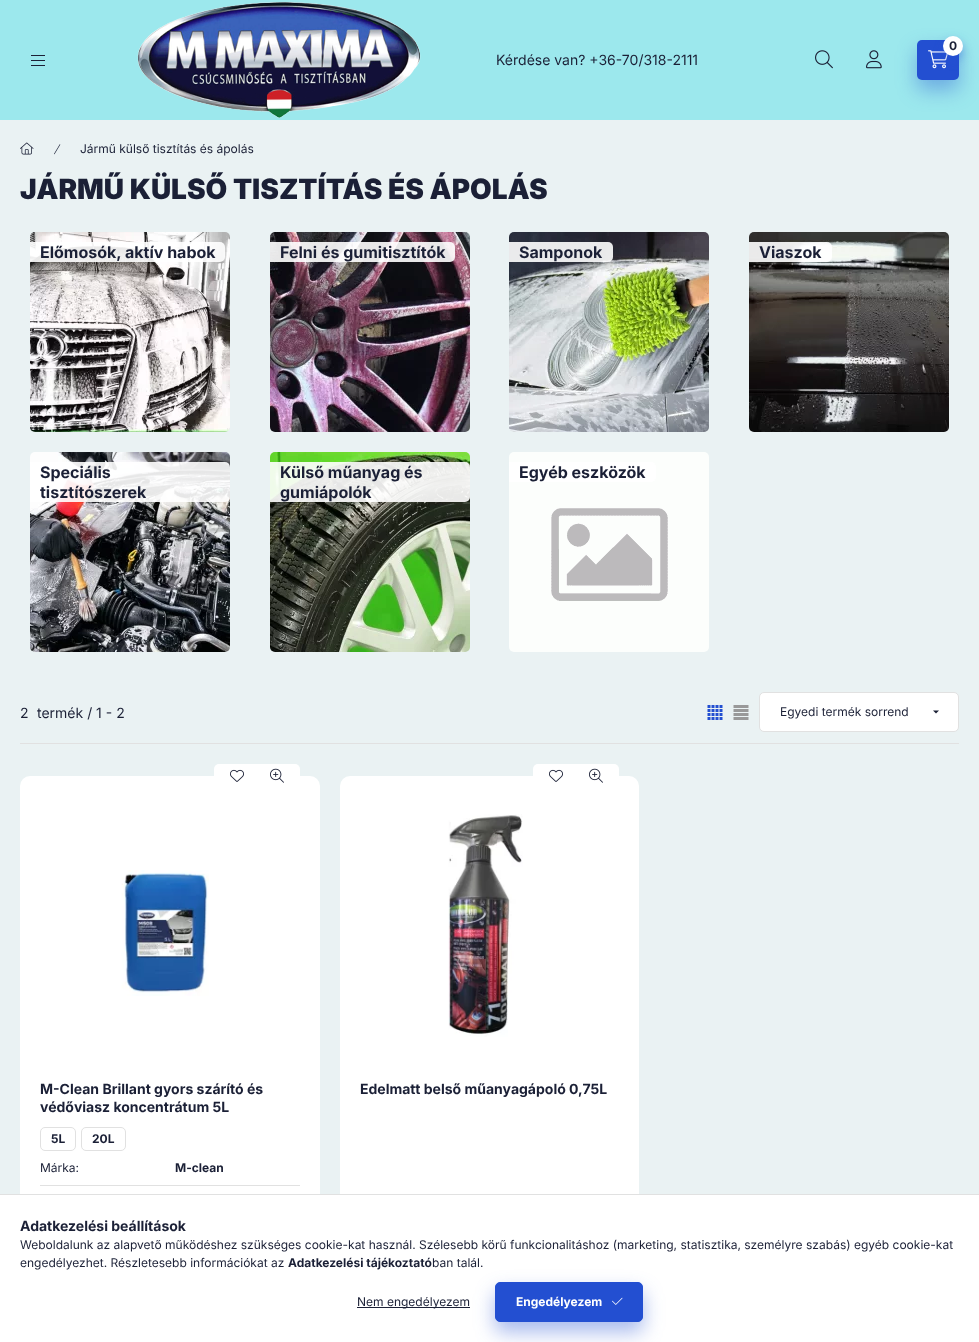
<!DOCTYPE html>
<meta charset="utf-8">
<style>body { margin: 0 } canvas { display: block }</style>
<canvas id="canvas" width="979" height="1342"></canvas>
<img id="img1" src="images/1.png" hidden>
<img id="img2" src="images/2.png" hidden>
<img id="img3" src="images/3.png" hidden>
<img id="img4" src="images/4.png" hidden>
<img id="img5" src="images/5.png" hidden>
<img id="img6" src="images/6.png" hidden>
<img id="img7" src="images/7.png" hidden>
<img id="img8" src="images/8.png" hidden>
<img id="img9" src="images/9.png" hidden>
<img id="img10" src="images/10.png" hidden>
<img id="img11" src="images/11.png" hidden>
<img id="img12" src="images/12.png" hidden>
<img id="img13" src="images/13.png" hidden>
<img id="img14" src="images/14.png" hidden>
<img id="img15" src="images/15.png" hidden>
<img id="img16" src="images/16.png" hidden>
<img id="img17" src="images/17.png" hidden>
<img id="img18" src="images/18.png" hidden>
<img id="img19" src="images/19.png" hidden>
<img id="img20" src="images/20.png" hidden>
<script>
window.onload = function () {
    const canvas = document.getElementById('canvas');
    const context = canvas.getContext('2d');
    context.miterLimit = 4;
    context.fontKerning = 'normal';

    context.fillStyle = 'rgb(234, 242, 243)';
    context.fillRect(0, 0, 979, 1342);
    context.fillStyle = 'rgb(156, 232, 237)';
    context.fillRect(0, 0, 979, 120);
    context.fillStyle = 'rgba(35, 79, 209, 0.4)';
    context.filter = 'blur(10px)';
    context.beginPath();
    context.roundRect(917, 50, 42, 40, 5);
    context.fill();
    context.filter = 'none';
    context.fillStyle = 'rgb(35, 79, 209)';
    context.beginPath();
    context.roundRect(917, 40, 42, 40, 5);
    context.fill();
    context.drawImage(document.getElementById('img1'), 928, 50, 20, 19);
    context.fillStyle = 'rgba(35, 79, 209, 0.4)';
    context.filter = 'blur(5px)';
    context.beginPath();
    context.roundRect(943, 41, 20, 20, 10);
    context.fill();
    context.filter = 'none';
    context.fillStyle = 'rgb(255, 255, 255)';
    context.beginPath();
    context.arc(953, 46, 10, 0, 2 * Math.PI);
    context.fill();
    context.drawImage(document.getElementById('img2'), 815, 50, 18, 19);
    context.drawImage(document.getElementById('img3'), 866, 50, 16, 19);
    context.fillStyle = 'rgb(27, 32, 54)';
    context.fillRect(31, 55, 14, 1);
    context.fillRect(31, 60, 14, 1);
    context.fillRect(31, 65, 14, 1);
    context.drawImage(document.getElementById('img4'), 137, 1, 284, 117);
    context.drawImage(document.getElementById('img5'), 20, 142, 14, 13);
    context.drawImage(document.getElementById('img6'), 54, 144, 7, 11);
    context.drawImage(document.getElementById('img7'), 30, 232, 200, 200);
    context.fillStyle = 'rgba(255, 255, 255, 0.9)';
    context.beginPath();
    context.roundRect(30, 242, 195, 20, [0, 5, 5, 0]);
    context.fill();
    context.drawImage(document.getElementById('img8'), 270, 232, 200, 200);
    context.beginPath();
    context.roundRect(270, 242, 185, 20, [0, 5, 5, 0]);
    context.fill();
    context.drawImage(document.getElementById('img9'), 509, 232, 200, 200);
    context.beginPath();
    context.roundRect(509, 242, 104, 20, [0, 5, 5, 0]);
    context.fill();
    context.drawImage(document.getElementById('img10'), 749, 232, 200, 200);
    context.beginPath();
    context.roundRect(749, 242, 83, 20, [0, 5, 5, 0]);
    context.fill();
    context.drawImage(document.getElementById('img11'), 30, 452, 200, 200);
    context.beginPath();
    context.roundRect(30, 462, 200, 40, [0, 5, 5, 0]);
    context.fill();
    context.drawImage(document.getElementById('img12'), 270, 452, 200, 200);
    context.beginPath();
    context.roundRect(270, 462, 200, 40, [0, 5, 5, 0]);
    context.fill();
    context.drawImage(document.getElementById('img13'), 509, 452, 200, 200);
    context.fillStyle = 'rgb(255, 255, 255)';
    context.beginPath();
    context.roundRect(509, 462, 147, 20, [0, 5, 5, 0]);
    context.fill();
    context.fillStyle = 'rgb(225, 225, 225)';
    context.fillRect(20, 743, 939, 1);
    context.drawImage(document.getElementById('img14'), 707, 705, 16, 15);
    context.drawImage(document.getElementById('img15'), 733, 705, 16, 15);
    context.fillStyle = 'rgb(255, 255, 255)';
    context.beginPath();
    context.roundRect(759.5, 692.5, 199, 39, 4.5);
    context.fill();
    context.strokeStyle = 'rgb(225, 225, 225)';
    context.stroke();
    context.fillStyle = 'rgb(27, 32, 54)';
    context.beginPath();
    context.moveTo(933, 710.5);
    context.lineTo(939, 710.5);
    context.lineTo(936, 713.5);
    context.closePath();
    context.fill();
    context.fillStyle = 'rgb(255, 255, 255)';
    context.beginPath();
    context.roundRect(20, 776, 300, 533, 10);
    context.fill();
    context.beginPath();
    context.roundRect(214, 764, 86, 24, 5);
    context.fill();
    context.drawImage(document.getElementById('img16'), 230, 769, 14, 13);
    context.drawImage(document.getElementById('img17'), 270, 768, 14, 15);
    context.drawImage(document.getElementById('img18'), 121, 870, 88, 126);
    context.beginPath();
    context.roundRect(40.5, 1127.5, 35, 23, 4.5);
    context.stroke();
    context.beginPath();
    context.roundRect(81.5, 1127.5, 44, 23, 4.5);
    context.stroke();
    context.fillStyle = 'rgb(225, 225, 225)';
    context.fillRect(40, 1185, 260, 1);
    context.fillStyle = 'rgb(255, 255, 255)';
    context.beginPath();
    context.roundRect(340, 776, 299, 533, 10);
    context.fill();
    context.beginPath();
    context.roundRect(533, 764, 86, 24, 5);
    context.fill();
    context.drawImage(document.getElementById('img16'), 549, 769, 14, 13);
    context.drawImage(document.getElementById('img17'), 589, 768, 14, 15);
    context.drawImage(document.getElementById('img19'), 448, 814, 75, 223);
    context.fillRect(0, 1195, 979, 147);
    context.fillStyle = 'rgb(225, 225, 225)';
    context.fillRect(0, 1194, 979, 1);
    context.fillStyle = 'rgb(27, 32, 54)';
    context.fillRect(357, 1307, 113, 1);
    context.fillStyle = 'rgba(35, 79, 209, 0.4)';
    context.filter = 'blur(10px)';
    context.beginPath();
    context.roundRect(495, 1292, 148, 40, 5);
    context.fill();
    context.filter = 'none';
    context.fillStyle = 'rgb(35, 79, 209)';
    context.beginPath();
    context.roundRect(495.5, 1282.5, 147, 39, 4.5);
    context.fill();
    context.strokeStyle = 'rgb(35, 79, 209)';
    context.stroke();
    context.drawImage(document.getElementById('img20'), 612, 1297, 11, 8);
    context.font = 'bold 12px Inter';
    context.fillStyle = 'rgb(27, 32, 54)';
    context.fillText('0', 949, 50);
    context.font = '14px Inter';
    context.fillText('Kérdése van? +36-70/318-2111', 496, 65);
    context.font = '12px Inter';
    context.fillText('Jármű külső tisztítás és ápolás', 80, 153);
    context.font = '900 28px Inter';
    context.fillText('JÁRMŰ KÜLSŐ TISZTÍTÁS ÉS ÁPOLÁS', 20, 199);
    context.font = 'bold 16px Inter';
    context.fillText('Előmosók, aktív habok', 40, 258);
    context.fillText('Felni és gumitisztítók', 280, 258);
    context.fillText('Samponok', 519, 258);
    context.fillText('Viaszok', 759, 258);
    context.fillText('Speciális', 40, 478);
    context.fillText('tisztítószerek', 40, 498);
    context.fillText('Külső műanyag és', 280, 478);
    context.fillText('gumiápolók', 280, 498);
    context.fillText('Egyéb eszközök', 519, 478);
    context.font = '14px Inter';
    context.fillText('2', 20, 718);
    context.fillText('termék / 1 - 2', 37, 718);
    context.font = '12px Inter';
    context.fillText('Egyedi termék sorrend', 780, 716);
    context.font = 'bold 14px Inter';
    context.fillText('M-Clean Brillant gyors szárító és', 40, 1094);
    context.fillText('védőviasz koncentrátum 5L', 40, 1112);
    context.font = 'bold 12px Inter';
    context.fillText('5L', 51, 1143);
    context.fillText('20L', 92, 1143);
    context.font = '12px Inter';
    context.fillText('Márka:', 40, 1172);
    context.font = 'bold 12px Inter';
    context.fillText('M-clean', 175, 1172);
    context.font = 'bold 14px Inter';
    context.fillText('Edelmatt belső műanyagápoló 0,75L', 360, 1094);
    context.fillText('Adatkezelési beállítások', 20, 1231);
    context.font = '12px Inter';
    context.fillText('Weboldalunk az alapvető működéshez szükséges cookie-kat használ. Szélesebb körű funkcionalitáshoz (marketing, statisztika, személyre szabás) egyéb cookie-kat', 20, 1249);
    context.fillText('engedélyezhet. Részletesebb információkat az', 20, 1267);
    context.font = 'bold 12px Inter';
    context.fillText('Adatkezelési tájékoztató', 288, 1267);
    context.font = '12px Inter';
    context.fillText('ban talál.', 432, 1267);
    context.fillText('Nem engedélyezem', 357, 1306);
    context.font = 'bold 12px Inter';
    context.fillStyle = 'rgb(255, 255, 255)';
    context.fillText('Engedélyezem', 516, 1306);
};
</script>
